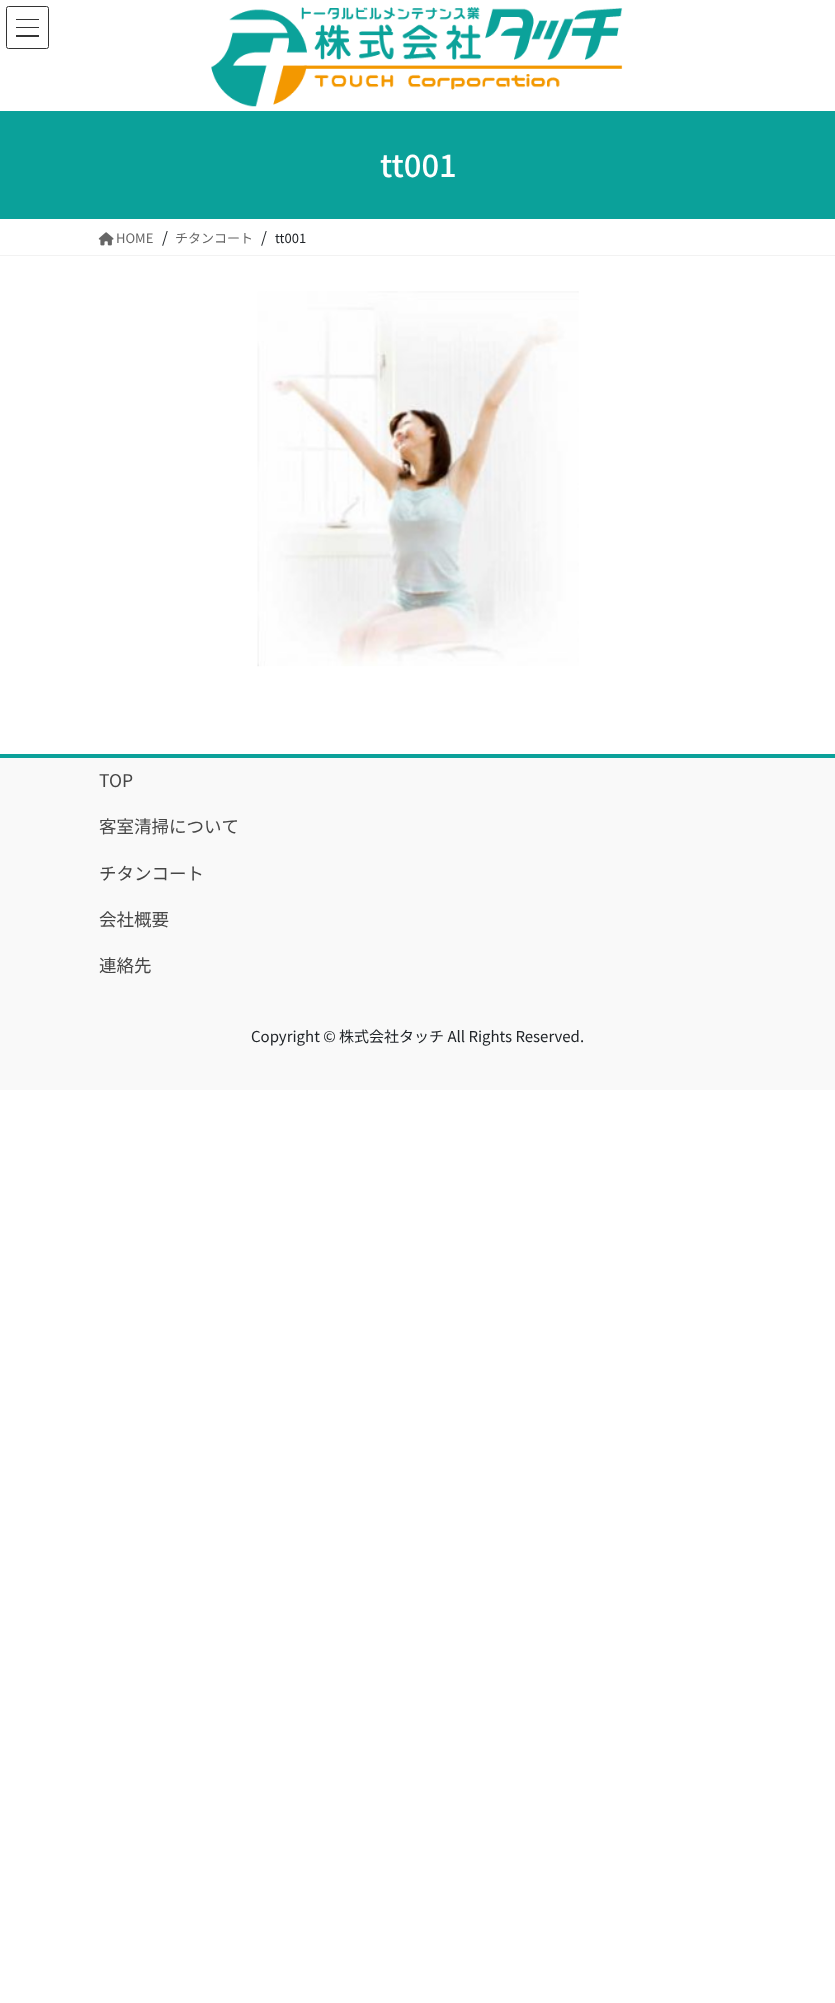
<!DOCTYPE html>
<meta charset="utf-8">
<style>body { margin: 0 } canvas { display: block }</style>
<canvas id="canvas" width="835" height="2003"></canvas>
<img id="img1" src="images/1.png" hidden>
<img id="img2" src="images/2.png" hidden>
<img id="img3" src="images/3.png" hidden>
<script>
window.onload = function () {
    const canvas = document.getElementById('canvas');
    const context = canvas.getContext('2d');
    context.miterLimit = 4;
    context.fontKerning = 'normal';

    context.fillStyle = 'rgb(255, 255, 255)';
    context.fillRect(0, 0, 835, 2003);
    context.fillStyle = 'rgb(51, 51, 51)';
    context.fillRect(16, 19, 23, 1);
    context.fillRect(16, 27, 23, 1);
    context.fillRect(16, 35, 23, 2);
    context.beginPath();
    context.roundRect(6.5, 6.5, 42, 42, 2);
    context.strokeStyle = 'rgb(51, 51, 51)';
    context.stroke();
    context.drawImage(document.getElementById('img1'), 211, 7, 412, 100);
    context.fillStyle = 'rgb(11, 161, 154)';
    context.fillRect(0, 111, 835, 108);
    context.fillStyle = 'rgb(242, 242, 242)';
    context.fillRect(0, 255, 835, 1);
    context.drawImage(document.getElementById('img2'), 98, 232, 16, 14);
    context.drawImage(document.getElementById('img3'), 257, 291, 322, 376);
    context.fillStyle = 'rgb(249, 249, 249)';
    context.fillRect(0, 758, 835, 332);
    context.fillStyle = 'rgb(11, 161, 154)';
    context.fillRect(0, 754, 835, 4);
    context.font = '500 31px Noto Sans JP';
    context.fillStyle = 'rgb(255, 255, 255)';
    context.fillText('tt001', 380, 177);
    context.font = '13px Noto Sans JP';
    context.fillStyle = 'rgb(102, 102, 102)';
    context.fillText('HOME', 116, 243);
    context.font = '15px Noto Sans JP';
    context.fillStyle = 'rgb(33, 37, 41)';
    context.fillText('/', 162, 243);
    context.font = '13px Noto Sans JP';
    context.fillStyle = 'rgb(102, 102, 102)';
    context.fillText('チタンコート', 175, 243);
    context.font = '15px Noto Sans JP';
    context.fillStyle = 'rgb(33, 37, 41)';
    context.fillText('/', 261, 243);
    context.font = '13px Noto Sans JP';
    context.fillText('tt001', 275, 243);
    context.font = '17.5px Noto Sans JP';
    context.fillStyle = 'rgb(70, 70, 70)';
    context.fillText('TOP', 99, 787);
    context.fillText('客室清掃について', 99, 833);
    context.fillText('チタンコート', 99, 880);
    context.fillText('会社概要', 99, 926);
    context.fillText('連絡先', 99, 972);
    context.font = '15px Noto Sans JP';
    context.fillStyle = 'rgb(33, 37, 41)';
    context.fillText('Copyright © 株式会社タッチ All Rights Reserved.', 251, 1042);
};
</script>
